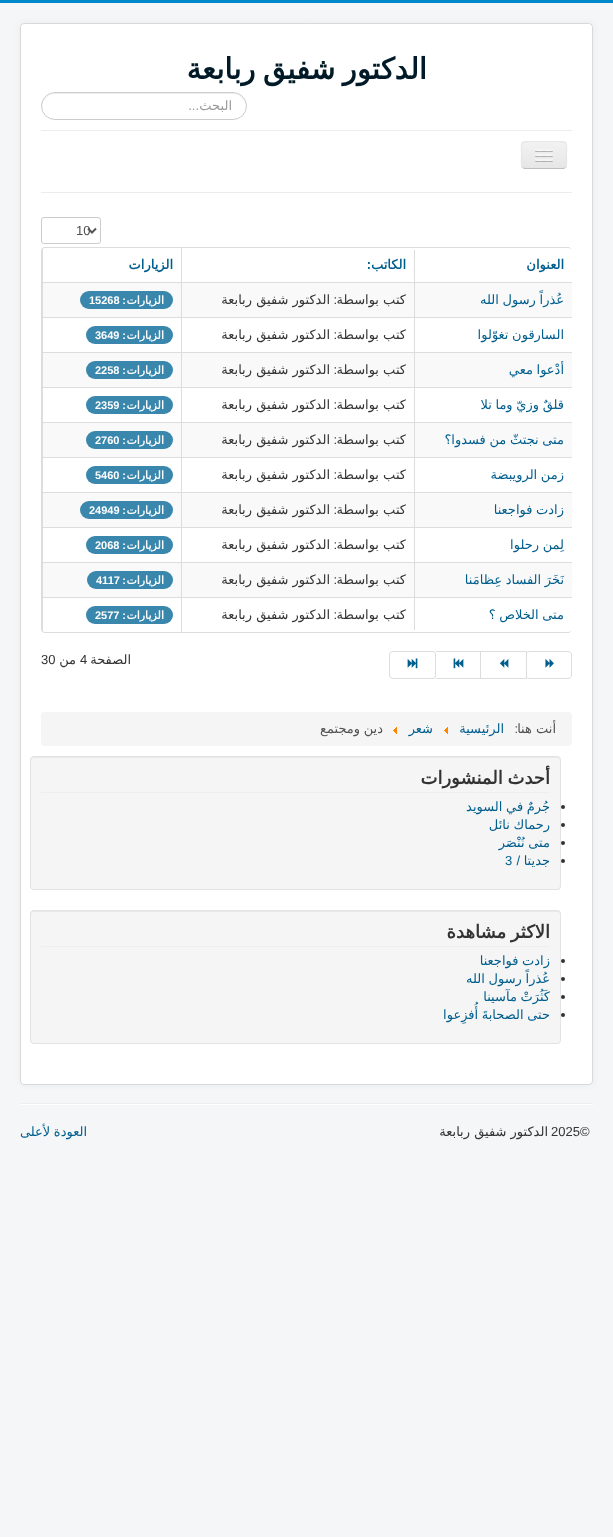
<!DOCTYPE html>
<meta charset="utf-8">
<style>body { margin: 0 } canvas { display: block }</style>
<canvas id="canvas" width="613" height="1537"></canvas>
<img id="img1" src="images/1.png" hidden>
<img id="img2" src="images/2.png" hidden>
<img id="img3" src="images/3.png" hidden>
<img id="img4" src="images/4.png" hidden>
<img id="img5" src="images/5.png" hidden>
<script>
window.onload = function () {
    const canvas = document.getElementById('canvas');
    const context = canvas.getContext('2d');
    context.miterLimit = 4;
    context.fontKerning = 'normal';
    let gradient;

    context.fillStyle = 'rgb(244, 246, 247)';
    context.fillRect(0, 0, 613, 1537);
    context.fillStyle = 'rgb(0, 136, 204)';
    context.fillRect(0, 0, 613, 3);
    context.fillStyle = 'rgba(0, 0, 0, 0.05)';
    context.filter = 'blur(3px)';
    context.beginPath();
    context.roundRect(20, 23, 573, 1062, 4);
    context.fill();
    context.filter = 'none';
    context.fillStyle = 'rgb(255, 255, 255)';
    context.beginPath();
    context.roundRect(20, 23, 573, 1062, 4);
    context.fill();
    context.beginPath();
    context.roundRect(20.5, 23.5, 572, 1061, 3.5);
    context.strokeStyle = 'rgba(0, 0, 0, 0.15)';
    context.stroke();
    context.fillStyle = 'rgb(236, 236, 236)';
    context.beginPath();
    context.moveTo(55, 94);
    context.lineTo(233, 94);
    context.bezierCurveTo(240, 94, 246, 100, 246, 107);
    context.bezierCurveTo(247, 86, 211, 93, 203, 93);
    context.lineTo(85, 93);
    context.bezierCurveTo(77, 93, 41, 86, 42, 107);
    context.bezierCurveTo(42, 100, 48, 94, 55, 94);
    context.closePath();
    context.fill();
    context.beginPath();
    context.roundRect(41.5, 92.5, 205, 27, 13.5);
    context.strokeStyle = 'rgb(204, 204, 204)';
    context.stroke();
    context.fillRect(41, 130, 531, 1);
    context.fillRect(41, 192, 531, 1);
    context.fillStyle = 'rgb(237, 237, 237)';
    context.beginPath();
    context.roundRect(521, 141, 46, 28, 4);
    context.fill();
    context.save();
    context.beginPath();
    context.roundRect(521, 141, 46, 28, 4);
    context.clip();
    gradient = context.createLinearGradient(544, 142, 544, 168);
    gradient.addColorStop(0, 'rgb(242, 242, 242)');
    gradient.addColorStop(1, 'rgb(230, 230, 230)');
    context.fillStyle = gradient;
    context.fillRect(521, 142, 46, 26);
    context.restore();
    context.beginPath();
    context.moveTo(565.5, 167.5);
    context.bezierCurveTo(565, 168, 564, 168.5, 563, 168.5);
    context.lineTo(525, 168.5);
    context.bezierCurveTo(524, 168.5, 523, 168, 522.5, 167.5);
    context.strokeStyle = 'rgb(191, 191, 191)';
    context.stroke();
    context.beginPath();
    context.moveTo(522.5, 167.5);
    context.bezierCurveTo(520.5, 165, 521.5, 157.5, 521.5, 155);
    context.bezierCurveTo(521.5, 142.5, 519, 141.5, 531.5, 141.5);
    context.lineTo(556.5, 141.5);
    context.bezierCurveTo(569, 141.5, 566.5, 142.5, 566.5, 155);
    context.bezierCurveTo(566.5, 157.5, 567.5, 165, 565.5, 167.5);
    context.strokeStyle = 'rgb(230, 230, 230)';
    context.stroke();
    context.fillStyle = 'rgb(179, 179, 179)';
    context.beginPath();
    context.moveTo(535, 150.5);
    context.bezierCurveTo(534, 152.5, 538.5, 152, 538.5, 152);
    context.lineTo(549.5, 152);
    context.bezierCurveTo(549.5, 152, 554, 152.5, 553, 150.5);
    context.bezierCurveTo(552, 151.5, 545.5, 151, 544, 151);
    context.bezierCurveTo(542.5, 151, 536, 151.5, 535, 150.5);
    context.closePath();
    context.fill();
    context.fillStyle = 'rgb(245, 245, 245)';
    context.beginPath();
    context.roundRect(535, 149, 18, 2, 1);
    context.fill();
    context.fillStyle = 'rgb(176, 176, 176)';
    context.beginPath();
    context.moveTo(535, 155.5);
    context.bezierCurveTo(534, 157.5, 538.5, 157, 538.5, 157);
    context.lineTo(549.5, 157);
    context.bezierCurveTo(549.5, 157, 554, 157.5, 553, 155.5);
    context.bezierCurveTo(552, 156.5, 545.5, 156, 544, 156);
    context.bezierCurveTo(542.5, 156, 536, 156.5, 535, 155.5);
    context.closePath();
    context.fill();
    context.fillStyle = 'rgb(245, 245, 245)';
    context.beginPath();
    context.roundRect(535, 154, 18, 2, 1);
    context.fill();
    context.fillStyle = 'rgb(175, 175, 175)';
    context.beginPath();
    context.moveTo(535, 160.5);
    context.bezierCurveTo(534, 162.5, 538.5, 162, 538.5, 162);
    context.lineTo(549.5, 162);
    context.bezierCurveTo(549.5, 162, 554, 162.5, 553, 160.5);
    context.bezierCurveTo(552, 161.5, 545.5, 161, 544, 161);
    context.bezierCurveTo(542.5, 161, 536, 161.5, 535, 160.5);
    context.closePath();
    context.fill();
    context.fillStyle = 'rgb(245, 245, 245)';
    context.beginPath();
    context.roundRect(535, 159, 18, 2, 1);
    context.fill();
    context.beginPath();
    context.roundRect(41.5, 217.5, 59, 26, 2.5);
    context.strokeStyle = 'rgb(204, 204, 204)';
    context.stroke();
    context.beginPath();
    context.moveTo(88, 228.5);
    context.lineTo(92, 232.5);
    context.lineTo(96, 228.5);
    context.strokeStyle = 'rgb(85, 85, 85)';
    context.lineWidth = 2;
    context.stroke();
    context.fillStyle = 'rgb(221, 221, 221)';
    context.beginPath();
    context.moveTo(45, 247);
    context.lineTo(568, 247);
    context.bezierCurveTo(570, 247, 572, 249, 572, 251);
    context.lineTo(572, 629);
    context.bezierCurveTo(572, 631, 570, 633, 568, 633);
    context.lineTo(45, 633);
    context.bezierCurveTo(43, 633, 41, 631, 41, 629);
    context.lineTo(41, 251);
    context.bezierCurveTo(41, 249, 43, 247, 45, 247);
    context.closePath();
    context.moveTo(45, 248);
    context.lineTo(568, 248);
    context.bezierCurveTo(570, 248, 572, 249, 572, 251);
    context.lineTo(572, 629);
    context.bezierCurveTo(572, 631, 570, 632, 568, 632);
    context.lineTo(45, 632);
    context.bezierCurveTo(43, 632, 42, 631, 42, 629);
    context.lineTo(42, 251);
    context.bezierCurveTo(42, 249, 43, 248, 45, 248);
    context.closePath();
    context.fill('evenodd');
    context.fillRect(414, 250, 1, 32);
    context.fillRect(181, 248, 1, 34);
    context.fillRect(42, 248, 1, 34);
    context.fillStyle = 'rgb(249, 249, 249)';
    context.fillRect(415, 283, 157, 34);
    context.fillStyle = 'rgb(221, 221, 221)';
    context.fillRect(42, 282, 530, 1);
    context.fillRect(414, 282, 1, 35);
    context.fillStyle = 'rgb(249, 249, 249)';
    context.fillRect(182, 283, 232, 34);
    context.fillStyle = 'rgb(221, 221, 221)';
    context.fillRect(181, 282, 1, 35);
    context.fillStyle = 'rgb(249, 249, 249)';
    context.fillRect(43, 283, 138, 34);
    context.fillStyle = 'rgb(221, 221, 221)';
    context.fillRect(42, 282, 1, 35);
    context.fillStyle = 'rgb(58, 135, 173)';
    context.beginPath();
    context.roundRect(80, 291, 93, 18, 9);
    context.fill();
    context.fillStyle = 'rgb(221, 221, 221)';
    context.fillRect(42, 317, 530, 1);
    context.fillRect(414, 317, 1, 35);
    context.fillRect(181, 317, 1, 35);
    context.fillRect(42, 317, 1, 35);
    context.fillStyle = 'rgb(58, 135, 173)';
    context.beginPath();
    context.roundRect(86, 326, 87, 18, 9);
    context.fill();
    context.fillStyle = 'rgb(249, 249, 249)';
    context.fillRect(415, 353, 157, 34);
    context.fillStyle = 'rgb(221, 221, 221)';
    context.fillRect(42, 352, 530, 1);
    context.fillRect(414, 352, 1, 35);
    context.fillStyle = 'rgb(249, 249, 249)';
    context.fillRect(182, 353, 232, 34);
    context.fillStyle = 'rgb(221, 221, 221)';
    context.fillRect(181, 352, 1, 35);
    context.fillStyle = 'rgb(249, 249, 249)';
    context.fillRect(43, 353, 138, 34);
    context.fillStyle = 'rgb(221, 221, 221)';
    context.fillRect(42, 352, 1, 35);
    context.fillStyle = 'rgb(58, 135, 173)';
    context.beginPath();
    context.roundRect(86, 361, 87, 18, 9);
    context.fill();
    context.fillStyle = 'rgb(221, 221, 221)';
    context.fillRect(42, 387, 530, 1);
    context.fillRect(414, 387, 1, 35);
    context.fillRect(181, 387, 1, 35);
    context.fillRect(42, 387, 1, 35);
    context.fillStyle = 'rgb(58, 135, 173)';
    context.beginPath();
    context.roundRect(86, 396, 87, 18, 9);
    context.fill();
    context.fillStyle = 'rgb(249, 249, 249)';
    context.fillRect(415, 423, 157, 34);
    context.fillStyle = 'rgb(221, 221, 221)';
    context.fillRect(42, 422, 530, 1);
    context.fillRect(414, 422, 1, 35);
    context.fillStyle = 'rgb(249, 249, 249)';
    context.fillRect(182, 423, 232, 34);
    context.fillStyle = 'rgb(221, 221, 221)';
    context.fillRect(181, 422, 1, 35);
    context.fillStyle = 'rgb(249, 249, 249)';
    context.fillRect(43, 423, 138, 34);
    context.fillStyle = 'rgb(221, 221, 221)';
    context.fillRect(42, 422, 1, 35);
    context.fillStyle = 'rgb(58, 135, 173)';
    context.beginPath();
    context.roundRect(86, 431, 87, 18, 9);
    context.fill();
    context.fillStyle = 'rgb(221, 221, 221)';
    context.fillRect(42, 457, 530, 1);
    context.fillRect(414, 457, 1, 35);
    context.fillRect(181, 457, 1, 35);
    context.fillRect(42, 457, 1, 35);
    context.fillStyle = 'rgb(58, 135, 173)';
    context.beginPath();
    context.roundRect(86, 466, 87, 18, 9);
    context.fill();
    context.fillStyle = 'rgb(249, 249, 249)';
    context.fillRect(415, 493, 157, 34);
    context.fillStyle = 'rgb(221, 221, 221)';
    context.fillRect(42, 492, 530, 1);
    context.fillRect(414, 492, 1, 35);
    context.fillStyle = 'rgb(249, 249, 249)';
    context.fillRect(182, 493, 232, 34);
    context.fillStyle = 'rgb(221, 221, 221)';
    context.fillRect(181, 492, 1, 35);
    context.fillStyle = 'rgb(249, 249, 249)';
    context.fillRect(43, 493, 138, 34);
    context.fillStyle = 'rgb(221, 221, 221)';
    context.fillRect(42, 492, 1, 35);
    context.fillStyle = 'rgb(58, 135, 173)';
    context.beginPath();
    context.roundRect(80, 501, 93, 18, 9);
    context.fill();
    context.fillStyle = 'rgb(221, 221, 221)';
    context.fillRect(42, 527, 530, 1);
    context.fillRect(414, 527, 1, 35);
    context.fillRect(181, 527, 1, 35);
    context.fillRect(42, 527, 1, 35);
    context.fillStyle = 'rgb(58, 135, 173)';
    context.beginPath();
    context.roundRect(86, 536, 87, 18, 9);
    context.fill();
    context.fillStyle = 'rgb(249, 249, 249)';
    context.fillRect(415, 563, 157, 34);
    context.fillStyle = 'rgb(221, 221, 221)';
    context.fillRect(42, 562, 530, 1);
    context.fillRect(414, 562, 1, 35);
    context.fillStyle = 'rgb(249, 249, 249)';
    context.fillRect(182, 563, 232, 34);
    context.fillStyle = 'rgb(221, 221, 221)';
    context.fillRect(181, 562, 1, 35);
    context.fillStyle = 'rgb(249, 249, 249)';
    context.fillRect(43, 563, 138, 34);
    context.fillStyle = 'rgb(221, 221, 221)';
    context.fillRect(42, 562, 1, 35);
    context.fillStyle = 'rgb(58, 135, 173)';
    context.beginPath();
    context.roundRect(87, 571, 86, 18, 9);
    context.fill();
    context.fillStyle = 'rgb(221, 221, 221)';
    context.fillRect(42, 597, 530, 1);
    context.fillRect(414, 597, 1, 33);
    context.fillRect(181, 597, 1, 35);
    context.fillRect(42, 597, 1, 35);
    context.fillStyle = 'rgb(58, 135, 173)';
    context.beginPath();
    context.roundRect(86, 606, 87, 18, 9);
    context.fill();
    context.fillStyle = 'rgb(221, 221, 221)';
    context.fillRect(436, 651, 91, 1);
    context.fillRect(480, 651, 1, 28);
    context.fillRect(436, 678, 45, 1);
    context.drawImage(document.getElementById('img1'), 453, 658, 11, 11);
    context.beginPath();
    context.roundRect(389.5, 651.5, 46, 27, [3.5, 2.5, 2.5, 3.5]);
    context.strokeStyle = 'rgb(221, 221, 221)';
    context.lineWidth = 1;
    context.stroke();
    context.drawImage(document.getElementById('img2'), 407, 658, 11, 11);
    context.beginPath();
    context.moveTo(530, 651);
    context.lineTo(568, 651);
    context.bezierCurveTo(570, 651, 572, 653, 572, 655);
    context.lineTo(572, 675);
    context.bezierCurveTo(572, 677, 570, 679, 568, 679);
    context.lineTo(530, 679);
    context.bezierCurveTo(528, 679, 527, 678, 527, 676);
    context.lineTo(527, 654);
    context.bezierCurveTo(527, 652, 528, 651, 530, 651);
    context.closePath();
    context.moveTo(530, 652);
    context.lineTo(568, 652);
    context.bezierCurveTo(570, 652, 571, 653, 571, 655);
    context.lineTo(571, 675);
    context.bezierCurveTo(571, 677, 570, 678, 568, 678);
    context.lineTo(530, 678);
    context.bezierCurveTo(528, 678, 527, 677, 527, 676);
    context.lineTo(527, 654);
    context.bezierCurveTo(527, 653, 528, 652, 530, 652);
    context.closePath();
    context.fill('evenodd');
    context.drawImage(document.getElementById('img3'), 545, 659, 9, 9);
    context.fillRect(526, 651, 1, 28);
    context.fillRect(481, 678, 46, 1);
    context.drawImage(document.getElementById('img4'), 499, 659, 10, 9);
    context.fillStyle = 'rgb(245, 245, 245)';
    context.beginPath();
    context.roundRect(41, 712, 531, 34, 4);
    context.fill();
    context.drawImage(document.getElementById('img5'), 444, 727, 4, 7);
    context.drawImage(document.getElementById('img5'), 393, 727, 4, 7);
    context.beginPath();
    context.roundRect(30, 756, 531, 134, 4);
    context.fill();
    context.fillStyle = 'rgb(233, 233, 233)';
    context.beginPath();
    context.moveTo(34, 758);
    context.lineTo(557, 758);
    context.bezierCurveTo(559, 758, 560, 759, 560, 761);
    context.lineTo(560, 760);
    context.bezierCurveTo(560, 758, 559, 757, 557, 757);
    context.lineTo(34, 757);
    context.bezierCurveTo(32, 757, 31, 758, 31, 760);
    context.lineTo(31, 761);
    context.bezierCurveTo(31, 759, 32, 758, 34, 758);
    context.closePath();
    context.fill();
    context.beginPath();
    context.roundRect(30.5, 756.5, 530, 133, 3.5);
    context.strokeStyle = 'rgb(227, 227, 227)';
    context.stroke();
    context.fillStyle = 'rgb(238, 238, 238)';
    context.fillRect(41, 792, 509, 1);
    context.fillStyle = 'rgb(51, 51, 51)';
    context.beginPath();
    context.arc(563, 807, 2, 0, 2 * Math.PI);
    context.fill();
    context.beginPath();
    context.arc(563, 825, 2, 0, 2 * Math.PI);
    context.fill();
    context.beginPath();
    context.arc(563, 843, 2, 0, 2 * Math.PI);
    context.fill();
    context.beginPath();
    context.arc(563, 861, 2, 0, 2 * Math.PI);
    context.fill();
    context.fillStyle = 'rgb(245, 245, 245)';
    context.beginPath();
    context.roundRect(30, 910, 531, 134, 4);
    context.fill();
    context.fillStyle = 'rgb(233, 233, 233)';
    context.beginPath();
    context.moveTo(34, 912);
    context.lineTo(557, 912);
    context.bezierCurveTo(559, 912, 560, 913, 560, 915);
    context.lineTo(560, 914);
    context.bezierCurveTo(560, 912, 559, 911, 557, 911);
    context.lineTo(34, 911);
    context.bezierCurveTo(32, 911, 31, 912, 31, 914);
    context.lineTo(31, 915);
    context.bezierCurveTo(31, 913, 32, 912, 34, 912);
    context.closePath();
    context.fill();
    context.beginPath();
    context.roundRect(30.5, 910.5, 530, 133, 3.5);
    context.stroke();
    context.fillStyle = 'rgb(238, 238, 238)';
    context.fillRect(41, 946, 509, 1);
    context.fillStyle = 'rgb(51, 51, 51)';
    context.beginPath();
    context.arc(563, 961, 2, 0, 2 * Math.PI);
    context.fill();
    context.beginPath();
    context.arc(563, 979, 2, 0, 2 * Math.PI);
    context.fill();
    context.beginPath();
    context.arc(563, 997, 2, 0, 2 * Math.PI);
    context.fill();
    context.beginPath();
    context.arc(563, 1015, 2, 0, 2 * Math.PI);
    context.fill();
    context.fillStyle = 'rgb(238, 238, 238)';
    context.fillRect(20, 1103, 573, 1);
    context.fillStyle = 'rgb(255, 255, 255)';
    context.fillRect(20, 1104, 573, 1);
    context.wordSpacing = '-2px';
    context.direction = 'rtl';
    context.font = 'bold 29.25px DejaVu Sans';
    context.fillStyle = 'rgb(0, 26, 39)';
    context.fillText('الدكتور شفيق ربابعة', 427, 79);
    context.wordSpacing = '0px';
    context.font = '13px DejaVu Sans';
    context.fillStyle = 'rgb(153, 153, 153)';
    context.fillText('البحث', 232, 110);
    context.font = '13px Liberation Sans';
    context.fillText('...', 199, 110);
    context.direction = 'ltr';
    context.fillStyle = 'rgb(81, 81, 81)';
    context.fillText('10', 76, 235);
    context.direction = 'rtl';
    context.font = 'bold 13px DejaVu Sans';
    context.fillStyle = 'rgb(0, 94, 141)';
    context.fillText('العنوان', 564, 269);
    context.fillText('الكاتب:', 406, 269);
    context.fillText('الزيارات', 173, 269);
    context.wordSpacing = '-0.5px';
    context.font = '13px DejaVu Sans';
    context.fillText('عُذراً رسول الله', 564, 304);
    context.wordSpacing = '0px';
    context.fillStyle = 'rgb(51, 51, 51)';
    context.fillText('كتب بواسطة', 406, 304);
    context.font = '13px Liberation Sans';
    context.fillText(':', 337, 304);
    context.font = '13px DejaVu Sans';
    context.fillText('الدكتور شفيق ربابعة', 330, 304);
    context.font = 'bold 11px DejaVu Sans';
    context.fillStyle = 'rgb(255, 255, 255)';
    context.fillText('الزيارات', 164, 304);
    context.font = 'bold 11px Liberation Sans';
    context.fillText(':', 126, 304);
    context.direction = 'ltr';
    context.fillText('15268', 89, 304);
    context.wordSpacing = '-0.5px';
    context.direction = 'rtl';
    context.font = '13px DejaVu Sans';
    context.fillStyle = 'rgb(0, 94, 141)';
    context.fillText('السارقون تغوّلوا', 564, 339);
    context.wordSpacing = '0px';
    context.fillStyle = 'rgb(51, 51, 51)';
    context.fillText('كتب بواسطة', 406, 339);
    context.font = '13px Liberation Sans';
    context.fillText(':', 337, 339);
    context.font = '13px DejaVu Sans';
    context.fillText('الدكتور شفيق ربابعة', 330, 339);
    context.font = 'bold 11px DejaVu Sans';
    context.fillStyle = 'rgb(255, 255, 255)';
    context.fillText('الزيارات', 164, 339);
    context.font = 'bold 11px Liberation Sans';
    context.fillText(':', 126, 339);
    context.direction = 'ltr';
    context.fillText('3649', 95, 339);
    context.wordSpacing = '-0.5px';
    context.direction = 'rtl';
    context.font = '13px DejaVu Sans';
    context.fillStyle = 'rgb(0, 94, 141)';
    context.fillText('أدْعوا معي', 564, 374);
    context.wordSpacing = '0px';
    context.fillStyle = 'rgb(51, 51, 51)';
    context.fillText('كتب بواسطة', 406, 374);
    context.font = '13px Liberation Sans';
    context.fillText(':', 337, 374);
    context.font = '13px DejaVu Sans';
    context.fillText('الدكتور شفيق ربابعة', 330, 374);
    context.font = 'bold 11px DejaVu Sans';
    context.fillStyle = 'rgb(255, 255, 255)';
    context.fillText('الزيارات', 164, 374);
    context.font = 'bold 11px Liberation Sans';
    context.fillText(':', 126, 374);
    context.direction = 'ltr';
    context.fillText('2258', 95, 374);
    context.wordSpacing = '-0.5px';
    context.direction = 'rtl';
    context.font = '13px DejaVu Sans';
    context.fillStyle = 'rgb(0, 94, 141)';
    context.fillText('قلقٌ وزيّ وما تلا', 564, 409);
    context.wordSpacing = '0px';
    context.fillStyle = 'rgb(51, 51, 51)';
    context.fillText('كتب بواسطة', 406, 409);
    context.font = '13px Liberation Sans';
    context.fillText(':', 337, 409);
    context.font = '13px DejaVu Sans';
    context.fillText('الدكتور شفيق ربابعة', 330, 409);
    context.font = 'bold 11px DejaVu Sans';
    context.fillStyle = 'rgb(255, 255, 255)';
    context.fillText('الزيارات', 164, 409);
    context.font = 'bold 11px Liberation Sans';
    context.fillText(':', 126, 409);
    context.direction = 'ltr';
    context.fillText('2359', 95, 409);
    context.wordSpacing = '-0.5px';
    context.direction = 'rtl';
    context.font = '13px DejaVu Sans';
    context.fillStyle = 'rgb(0, 94, 141)';
    context.fillText('متى نجتثّ من فسدوا؟', 564, 444);
    context.wordSpacing = '0px';
    context.fillStyle = 'rgb(51, 51, 51)';
    context.fillText('كتب بواسطة', 406, 444);
    context.font = '13px Liberation Sans';
    context.fillText(':', 337, 444);
    context.font = '13px DejaVu Sans';
    context.fillText('الدكتور شفيق ربابعة', 330, 444);
    context.font = 'bold 11px DejaVu Sans';
    context.fillStyle = 'rgb(255, 255, 255)';
    context.fillText('الزيارات', 164, 444);
    context.font = 'bold 11px Liberation Sans';
    context.fillText(':', 126, 444);
    context.direction = 'ltr';
    context.fillText('2760', 95, 444);
    context.wordSpacing = '-0.5px';
    context.direction = 'rtl';
    context.font = '13px DejaVu Sans';
    context.fillStyle = 'rgb(0, 94, 141)';
    context.fillText('زمن الرويبضة', 564, 479);
    context.wordSpacing = '0px';
    context.fillStyle = 'rgb(51, 51, 51)';
    context.fillText('كتب بواسطة', 406, 479);
    context.font = '13px Liberation Sans';
    context.fillText(':', 337, 479);
    context.font = '13px DejaVu Sans';
    context.fillText('الدكتور شفيق ربابعة', 330, 479);
    context.font = 'bold 11px DejaVu Sans';
    context.fillStyle = 'rgb(255, 255, 255)';
    context.fillText('الزيارات', 164, 479);
    context.font = 'bold 11px Liberation Sans';
    context.fillText(':', 126, 479);
    context.direction = 'ltr';
    context.fillText('5460', 95, 479);
    context.wordSpacing = '-0.5px';
    context.direction = 'rtl';
    context.font = '13px DejaVu Sans';
    context.fillStyle = 'rgb(0, 94, 141)';
    context.fillText('زادت فواجعنا', 564, 514);
    context.wordSpacing = '0px';
    context.fillStyle = 'rgb(51, 51, 51)';
    context.fillText('كتب بواسطة', 406, 514);
    context.font = '13px Liberation Sans';
    context.fillText(':', 337, 514);
    context.font = '13px DejaVu Sans';
    context.fillText('الدكتور شفيق ربابعة', 330, 514);
    context.font = 'bold 11px DejaVu Sans';
    context.fillStyle = 'rgb(255, 255, 255)';
    context.fillText('الزيارات', 164, 514);
    context.font = 'bold 11px Liberation Sans';
    context.fillText(':', 126, 514);
    context.direction = 'ltr';
    context.fillText('24949', 89, 514);
    context.wordSpacing = '-0.5px';
    context.direction = 'rtl';
    context.font = '13px DejaVu Sans';
    context.fillStyle = 'rgb(0, 94, 141)';
    context.fillText('لِمن رحلوا', 564, 549);
    context.wordSpacing = '0px';
    context.fillStyle = 'rgb(51, 51, 51)';
    context.fillText('كتب بواسطة', 406, 549);
    context.font = '13px Liberation Sans';
    context.fillText(':', 337, 549);
    context.font = '13px DejaVu Sans';
    context.fillText('الدكتور شفيق ربابعة', 330, 549);
    context.font = 'bold 11px DejaVu Sans';
    context.fillStyle = 'rgb(255, 255, 255)';
    context.fillText('الزيارات', 164, 549);
    context.font = 'bold 11px Liberation Sans';
    context.fillText(':', 126, 549);
    context.direction = 'ltr';
    context.fillText('2068', 95, 549);
    context.wordSpacing = '-0.5px';
    context.direction = 'rtl';
    context.font = '13px DejaVu Sans';
    context.fillStyle = 'rgb(0, 94, 141)';
    context.fillText('نَخَرَ الفساد عِظامَنا', 564, 584);
    context.wordSpacing = '0px';
    context.fillStyle = 'rgb(51, 51, 51)';
    context.fillText('كتب بواسطة', 406, 584);
    context.font = '13px Liberation Sans';
    context.fillText(':', 337, 584);
    context.font = '13px DejaVu Sans';
    context.fillText('الدكتور شفيق ربابعة', 330, 584);
    context.font = 'bold 11px DejaVu Sans';
    context.fillStyle = 'rgb(255, 255, 255)';
    context.fillText('الزيارات', 164, 584);
    context.font = 'bold 11px Liberation Sans';
    context.fillText(':', 126, 584);
    context.direction = 'ltr';
    context.fillText('4117', 96, 584);
    context.wordSpacing = '-0.5px';
    context.direction = 'rtl';
    context.font = '13px DejaVu Sans';
    context.fillStyle = 'rgb(0, 94, 141)';
    context.fillText('متى الخلاص ؟', 564, 619);
    context.wordSpacing = '0px';
    context.fillStyle = 'rgb(51, 51, 51)';
    context.fillText('كتب بواسطة', 406, 619);
    context.font = '13px Liberation Sans';
    context.fillText(':', 337, 619);
    context.font = '13px DejaVu Sans';
    context.fillText('الدكتور شفيق ربابعة', 330, 619);
    context.font = 'bold 11px DejaVu Sans';
    context.fillStyle = 'rgb(255, 255, 255)';
    context.fillText('الزيارات', 164, 619);
    context.font = 'bold 11px Liberation Sans';
    context.fillText(':', 126, 619);
    context.direction = 'ltr';
    context.fillText('2577', 95, 619);
    context.direction = 'rtl';
    context.font = '13px DejaVu Sans';
    context.fillStyle = 'rgb(51, 51, 51)';
    context.fillText('الصفحة', 131, 664);
    context.direction = 'ltr';
    context.font = '13px Liberation Sans';
    context.fillText('4', 80, 664);
    context.direction = 'rtl';
    context.font = '13px DejaVu Sans';
    context.fillText('من', 76, 664);
    context.direction = 'ltr';
    context.font = '13px Liberation Sans';
    context.fillText('30', 41, 664);
    context.direction = 'rtl';
    context.font = '13px DejaVu Sans';
    context.fillStyle = 'rgb(81, 81, 81)';
    context.fillText('أنت هنا', 556, 733);
    context.font = '13px Liberation Sans';
    context.fillText(':', 518, 733);
    context.font = '13px DejaVu Sans';
    context.fillStyle = 'rgb(0, 94, 141)';
    context.fillText('الرئيسية', 504, 733);
    context.fillText('شعر', 433, 733);
    context.wordSpacing = '-0.5px';
    context.fillStyle = 'rgb(81, 81, 81)';
    context.fillText('دين ومجتمع', 383, 733);
    context.wordSpacing = '-1px';
    context.font = 'bold 18px DejaVu Sans';
    context.fillStyle = 'rgb(51, 51, 51)';
    context.fillText('أحدث المنشورات', 550, 784);
    context.wordSpacing = '-0.5px';
    context.font = '13px DejaVu Sans';
    context.fillStyle = 'rgb(0, 94, 141)';
    context.fillText('جُرمٌ في السويد', 550, 811);
    context.fillText('رحماك نائل', 550, 829);
    context.fillText('متى نُنْصَر', 550, 847);
    context.wordSpacing = '0px';
    context.fillText('جديتا', 550, 865);
    context.font = '13px Liberation Sans';
    context.fillText('/', 520, 865);
    context.direction = 'ltr';
    context.fillText('3', 505, 865);
    context.wordSpacing = '-1px';
    context.direction = 'rtl';
    context.font = 'bold 18px DejaVu Sans';
    context.fillStyle = 'rgb(51, 51, 51)';
    context.fillText('الاكثر مشاهدة', 550, 938);
    context.wordSpacing = '-0.5px';
    context.font = '13px DejaVu Sans';
    context.fillStyle = 'rgb(0, 94, 141)';
    context.fillText('زادت فواجعنا', 550, 965);
    context.fillText('عُذراً رسول الله', 550, 983);
    context.fillText('كَثُرَتْ مآسينا', 550, 1001);
    context.fillText('حتى الصحابةَ أُفزِعوا', 550, 1019);
    context.wordSpacing = '0px';
    context.direction = 'ltr';
    context.font = '13px Liberation Sans';
    context.fillStyle = 'rgb(51, 51, 51)';
    context.fillText('2025©', 551, 1136);
    context.direction = 'rtl';
    context.font = '13px DejaVu Sans';
    context.fillText('الدكتور شفيق ربابعة', 548, 1136);
    context.wordSpacing = '-0.5px';
    context.fillStyle = 'rgb(0, 94, 141)';
    context.fillText('العودة لأعلى', 87, 1136);
};
</script>
